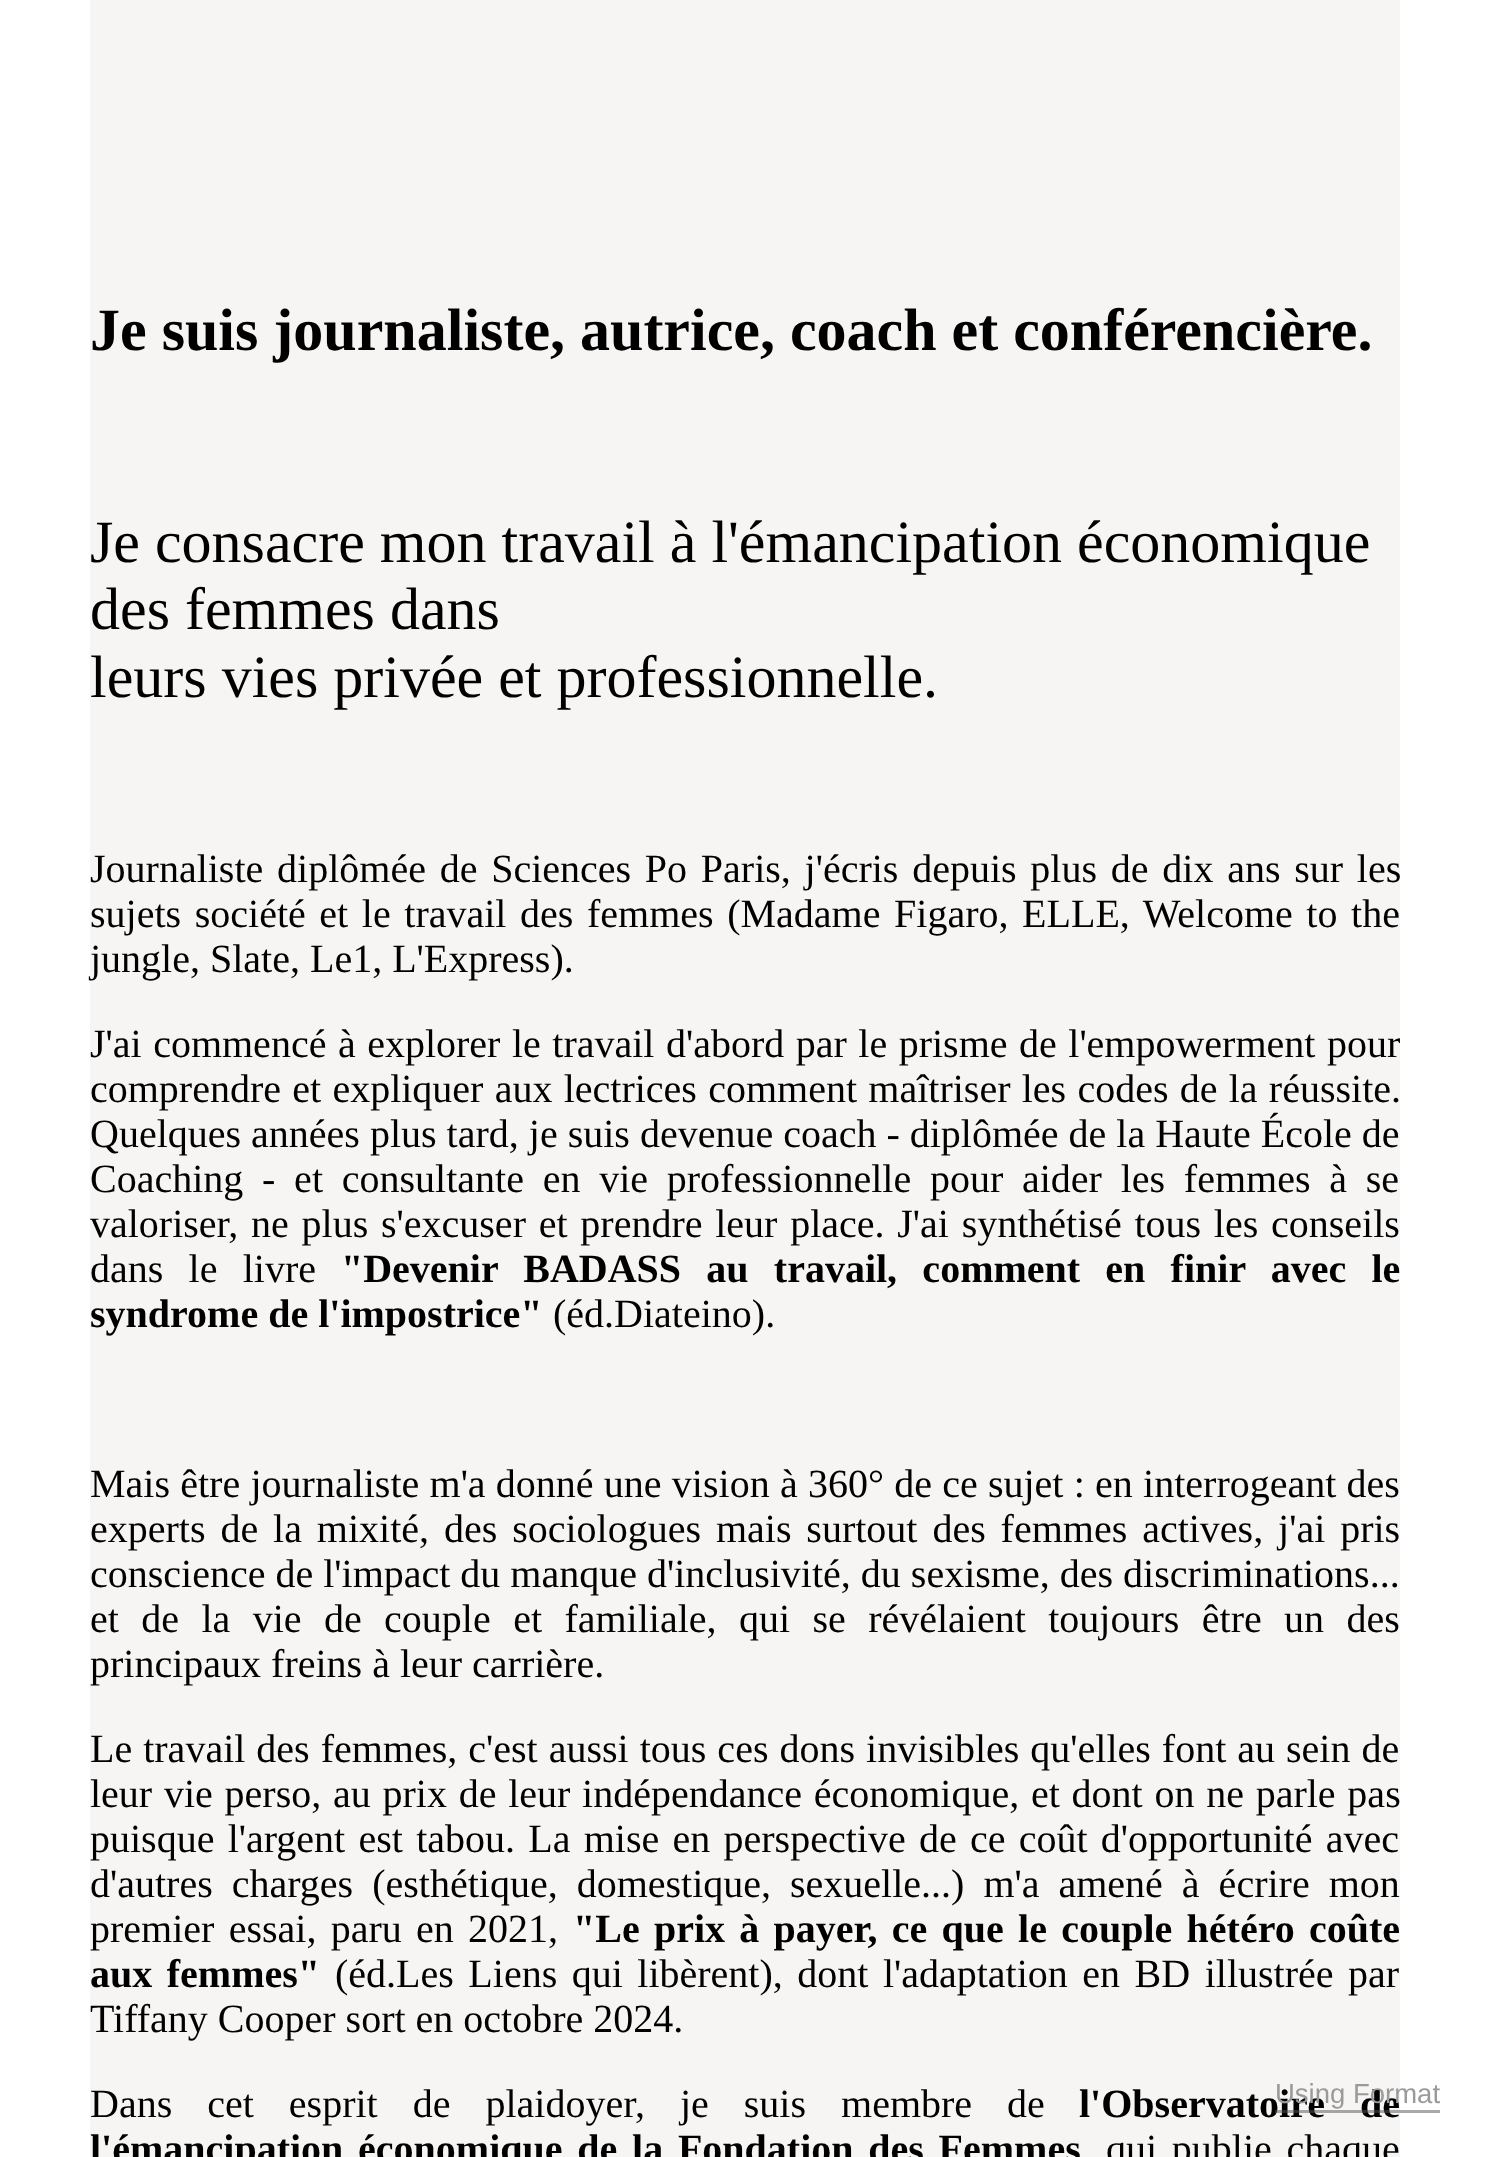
<!DOCTYPE html>
<meta charset="utf-8">
<style>body { margin: 0 } canvas { display: block }</style>
<canvas id="canvas" width="1488" height="2157"></canvas>
<script>
window.onload = function () {
    const canvas = document.getElementById('canvas');
    const context = canvas.getContext('2d');
    context.miterLimit = 4;
    context.fontKerning = 'normal';

    context.fillStyle = 'rgb(255, 255, 255)';
    context.fillRect(0, 0, 1488, 2157);
    context.fillStyle = 'rgb(246, 245, 244)';
    context.fillRect(90, 0, 1310, 2157);
    context.font = 'bold 60px Liberation Serif';
    context.fillStyle = 'rgb(0, 0, 0)';
    context.fillText('Je suis journaliste, autrice, coach et conférencière.', 90, 350);
    context.font = '60px Liberation Serif';
    context.fillText('Je consacre mon travail à l\'émancipation économique', 90, 562);
    context.fillText('des femmes dans', 90, 629);
    context.fillText('leurs vies privée et professionnelle.', 90, 697);
    context.wordSpacing = '3.75px';
    context.font = '40px Liberation Serif';
    context.fillText('Journaliste diplômée de Sciences Po Paris, j\'écris depuis plus de dix ans sur les', 90, 882);
    context.wordSpacing = '3.6px';
    context.fillText('sujets société et le travail des femmes (Madame Figaro, ELLE, Welcome to the', 90, 927);
    context.wordSpacing = '0px';
    context.fillText('jungle, Slate, Le1, L\'Express).', 90, 972);
    context.wordSpacing = '1.5px';
    context.fillText('J\'ai commencé à explorer le travail d\'abord par le prisme de l\'empowerment pour', 90, 1057);
    context.wordSpacing = '1.25px';
    context.fillText('comprendre et expliquer aux lectrices comment maîtriser les codes de la réussite.', 90, 1102);
    context.wordSpacing = '0px';
    context.fillText('Quelques années plus tard, je suis devenue coach - diplômée de la Haute École de', 90, 1147);
    context.wordSpacing = '8.75px';
    context.fillText('Coaching - et consultante en vie professionnelle pour aider les femmes à se', 90, 1192);
    context.wordSpacing = '2.75px';
    context.fillText('valoriser, ne plus s\'excuser et prendre leur place. J\'ai synthétisé tous les conseils', 90, 1237);
    context.wordSpacing = '15.25px';
    context.fillText('dans le livre', 90, 1282);
    context.font = 'bold 40px Liberation Serif';
    context.fillText('"Devenir BADASS au travail, comment en finir avec le', 341, 1282);
    context.wordSpacing = '0px';
    context.fillText('syndrome de l\'impostrice"', 90, 1327);
    context.font = '40px Liberation Serif';
    context.fillText('(éd.Diateino).', 553, 1327);
    context.wordSpacing = '0.25px';
    context.fillText('Mais être journaliste m\'a donné une vision à 360° de ce sujet : en interrogeant des', 90, 1497);
    context.wordSpacing = '4.9px';
    context.fillText('experts de la mixité, des sociologues mais surtout des femmes actives, j\'ai pris', 90, 1542);
    context.wordSpacing = '0px';
    context.fillText('conscience de l\'impact du manque d\'inclusivité, du sexisme, des discriminations...', 90, 1587);
    context.wordSpacing = '12.4px';
    context.fillText('et de la vie de couple et familiale, qui se révélaient toujours être un des', 90, 1632);
    context.wordSpacing = '0px';
    context.fillText('principaux freins à leur carrière.', 90, 1677);
    context.wordSpacing = '1px';
    context.fillText('Le travail des femmes, c\'est aussi tous ces dons invisibles qu\'elles font au sein de', 90, 1762);
    context.wordSpacing = '1.75px';
    context.fillText('leur vie perso, au prix de leur indépendance économique, et dont on ne parle pas', 90, 1807);
    context.wordSpacing = '3.25px';
    context.fillText('puisque l\'argent est tabou. La mise en perspective de ce coût d\'opportunité avec', 90, 1852);
    context.wordSpacing = '9px';
    context.fillText('d\'autres charges (esthétique, domestique, sexuelle...) m\'a amené à écrire mon', 90, 1897);
    context.wordSpacing = '4.25px';
    context.fillText('premier essai, paru en 2021,', 90, 1942);
    context.font = 'bold 40px Liberation Serif';
    context.fillText('"Le prix à payer, ce que le couple hétéro coûte', 573, 1942);
    context.wordSpacing = '4.5px';
    context.fillText('aux femmes"', 90, 1987);
    context.font = '40px Liberation Serif';
    context.fillText('(éd.Les Liens qui libèrent), dont l\'adaptation en BD illustrée par', 335, 1987);
    context.wordSpacing = '0px';
    context.fillText('Tiffany Cooper sort en octobre 2024.', 90, 2032);
    context.wordSpacing = '25px';
    context.fillText('Dans cet esprit de plaidoyer, je suis membre de', 90, 2117);
    context.font = 'bold 40px Liberation Serif';
    context.fillText('l\'Observatoire de', 1079, 2117);
    context.wordSpacing = '4.75px';
    context.fillText('l\'émancipation économique de la Fondation des Femmes', 90, 2162);
    context.font = '40px Liberation Serif';
    context.fillText('qui publie chaque', 1106, 2162);
    context.wordSpacing = '0px';
    context.font = '27.5px Liberation Sans';
    context.fillStyle = 'rgb(155, 154, 154)';
    context.fillText('Using Format', 1275, 2103);
    context.fillStyle = 'rgba(85, 85, 85, 0.5)';
    context.fillRect(1275, 2110, 165, 3);
};
</script>
